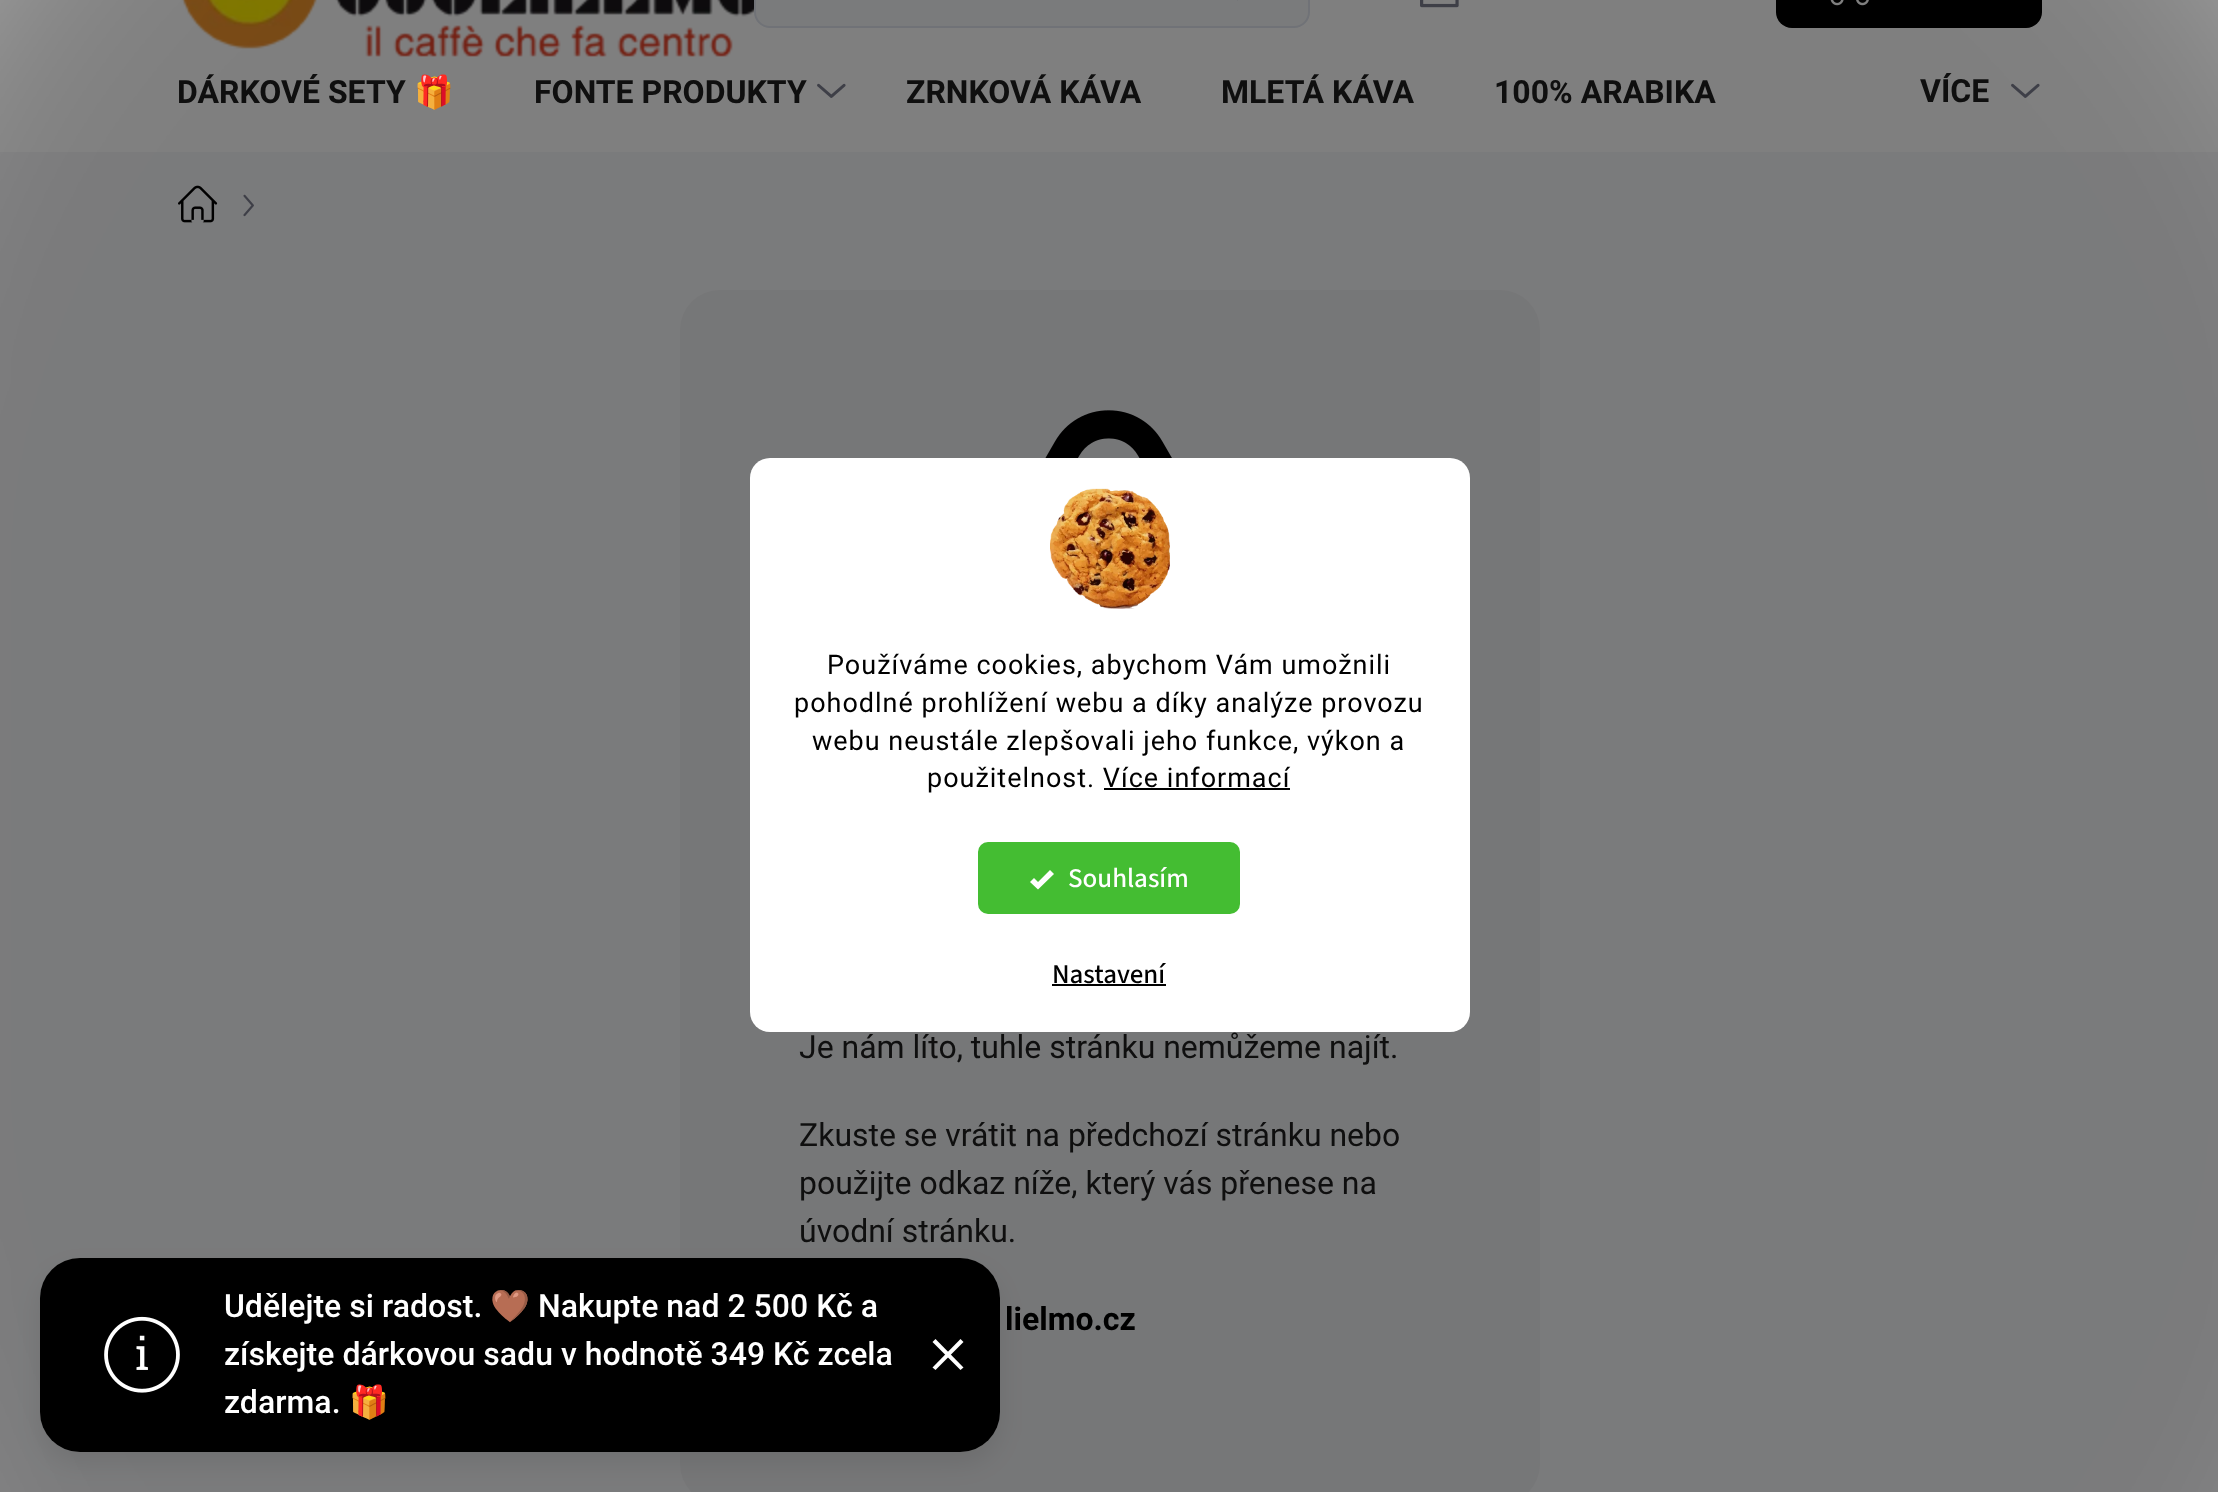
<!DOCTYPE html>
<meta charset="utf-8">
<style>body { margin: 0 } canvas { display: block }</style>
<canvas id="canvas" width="2218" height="1492"></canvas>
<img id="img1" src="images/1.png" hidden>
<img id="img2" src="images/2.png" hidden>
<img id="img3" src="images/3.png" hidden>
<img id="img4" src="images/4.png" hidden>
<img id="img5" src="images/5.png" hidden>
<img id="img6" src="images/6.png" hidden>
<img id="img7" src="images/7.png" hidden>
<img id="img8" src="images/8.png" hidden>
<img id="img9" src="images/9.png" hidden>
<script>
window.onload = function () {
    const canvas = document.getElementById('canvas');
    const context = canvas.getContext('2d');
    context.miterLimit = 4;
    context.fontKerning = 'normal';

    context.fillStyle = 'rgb(245, 246, 248)';
    context.fillRect(0, 0, 2218, 1492);
    context.fillStyle = 'rgb(255, 255, 255)';
    context.fillRect(0, 0, 2218, 152);
    context.drawImage(document.getElementById('img1'), 181, 0, 574, 57);
    context.fillStyle = 'rgb(245, 246, 248)';
    context.beginPath();
    context.roundRect(755, -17, 554, 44, 15);
    context.fill();
    context.strokeStyle = 'rgb(224, 229, 238)';
    context.lineWidth = 2;
    context.stroke();
    context.fillStyle = 'rgb(235, 236, 240)';
    context.fillRect(1237, 0, 1, 1);
    context.drawImage(document.getElementById('img2'), 1420, 0, 39, 8);
    context.fillStyle = 'rgb(0, 0, 0)';
    context.beginPath();
    context.roundRect(1776, -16, 266, 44, 16);
    context.fill();
    context.drawImage(document.getElementById('img3'), 1830, 0, 39, 6);
    context.drawImage(document.getElementById('img4'), 817, 83, 29, 15);
    context.drawImage(document.getElementById('img4'), 2011, 83, 29, 15);
    context.drawImage(document.getElementById('img5'), 178, 185, 40, 38);
    context.drawImage(document.getElementById('img6'), 243, 194, 11, 23);
    context.fillStyle = 'rgb(237, 238, 240)';
    context.beginPath();
    context.roundRect(680, 290, 860, 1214, 40);
    context.fill();
    context.drawImage(document.getElementById('img7'), 1045, 410, 127, 48);
    context.fillStyle = 'rgba(0, 0, 0, 0.08)';
    context.filter = 'blur(12px)';
    context.beginPath();
    context.roundRect(40, 1270, 960, 194, 40);
    context.fill();
    context.filter = 'none';
    context.fillStyle = 'rgba(0, 0, 0, 0.5)';
    context.filter = 'blur(160px)';
    context.beginPath();
    context.roundRect(-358, -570, 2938, 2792, 1130);
    context.fill();
    context.filter = 'none';
    context.fillStyle = 'rgb(0, 0, 0)';
    context.beginPath();
    context.roundRect(40, 1258, 960, 194, 40);
    context.fill();
    context.drawImage(document.getElementById('img8'), 104, 1316, 76, 77);
    context.fillStyle = 'rgb(255, 255, 255)';
    context.beginPath();
    context.moveTo(960.5, 1339);
    context.lineTo(963.5, 1342);
    context.lineTo(935.5, 1370);
    context.lineTo(932.5, 1367.5);
    context.closePath();
    context.fill();
    context.beginPath();
    context.moveTo(935.5, 1339);
    context.lineTo(963.5, 1367.5);
    context.lineTo(960.5, 1370);
    context.lineTo(932.5, 1342);
    context.closePath();
    context.fill();
    context.beginPath();
    context.roundRect(750, 458, 720, 574, 20);
    context.fill();
    context.drawImage(document.getElementById('img9'), 1050, 488, 120, 121);
    context.fillStyle = 'rgb(0, 0, 0)';
    context.fillRect(1104, 788, 186, 2);
    context.fillStyle = 'rgb(68, 189, 50)';
    context.beginPath();
    context.roundRect(979, 843, 260, 70, 9);
    context.fill();
    context.strokeStyle = 'rgb(68, 189, 50)';
    context.stroke();
    context.fillStyle = 'rgb(255, 255, 255)';
    context.beginPath();
    context.moveTo(1050, 870);
    context.lineTo(1038, 882);
    context.lineTo(1034, 878);
    context.lineTo(1030, 882);
    context.lineTo(1038, 889.5);
    context.lineTo(1054, 874);
    context.closePath();
    context.fill();
    context.fillStyle = 'rgb(0, 0, 0)';
    context.fillRect(1052, 984, 114, 2);
    context.font = 'bold 32px Roboto';
    context.fillStyle = 'rgb(15, 15, 15)';
    context.fillText('DÁRKOVÉ SETY', 177, 103);
    context.font = 'bold 32px Noto Color Emoji';
    context.fillText('🎁', 414, 103);
    context.font = 'bold 32px Roboto';
    context.fillText('FONTE PRODUKTY', 534, 103);
    context.fillText('ZRNKOVÁ KÁVA', 906, 103);
    context.fillText('MLETÁ KÁVA', 1221, 103);
    context.fillText('100% ARABIKA', 1494, 103);
    context.fillText('VÍCE', 1920, 102);
    context.font = '32px Roboto';
    context.fillText('Je nám líto, tuhle stránku nemůžeme najít.', 799, 1058);
    context.fillText('Zkuste se vrátit na předchozí stránku nebo', 799, 1146);
    context.fillText('použijte odkaz níže, který vás přenese na', 799, 1194);
    context.fillText('úvodní stránku.', 799, 1242);
    context.font = 'bold 32px Roboto';
    context.fillStyle = 'rgb(0, 0, 0)';
    context.fillText('lielmo.cz', 1005, 1330);
    context.font = '500 32px Roboto';
    context.fillStyle = 'rgb(255, 255, 255)';
    context.fillText('Udělejte si radost.', 224, 1317);
    context.font = '32px Noto Color Emoji';
    context.fillText('🤎', 490, 1317);
    context.font = '500 32px Roboto';
    context.fillText('Nakupte nad 2 500 Kč a', 538, 1317);
    context.fillText('získejte dárkovou sadu v hodnotě 349 Kč zcela', 224, 1365);
    context.fillText('zdarma.', 224, 1413);
    context.font = '32px Noto Color Emoji';
    context.fillText('🎁', 349, 1413);
    context.letterSpacing = '1px';
    context.font = '27px Roboto';
    context.fillStyle = 'rgb(0, 0, 0)';
    context.fillText('Používáme cookies, abychom Vám umožnili', 827, 674);
    context.fillText('pohodlné prohlížení webu a díky analýze provozu', 794, 712);
    context.fillText('webu neustále zlepšovali jeho funkce, výkon a', 812, 750);
    context.fillText('použitelnost. Více informací', 927, 787);
    context.letterSpacing = '0px';
    context.font = '500 27px "Source Sans 3"';
    context.fillStyle = 'rgb(255, 255, 255)';
    context.fillText('Souhlasím', 1068, 887);
    context.fillStyle = 'rgb(0, 0, 0)';
    context.fillText('Nastavení', 1052, 983);
};
</script>
